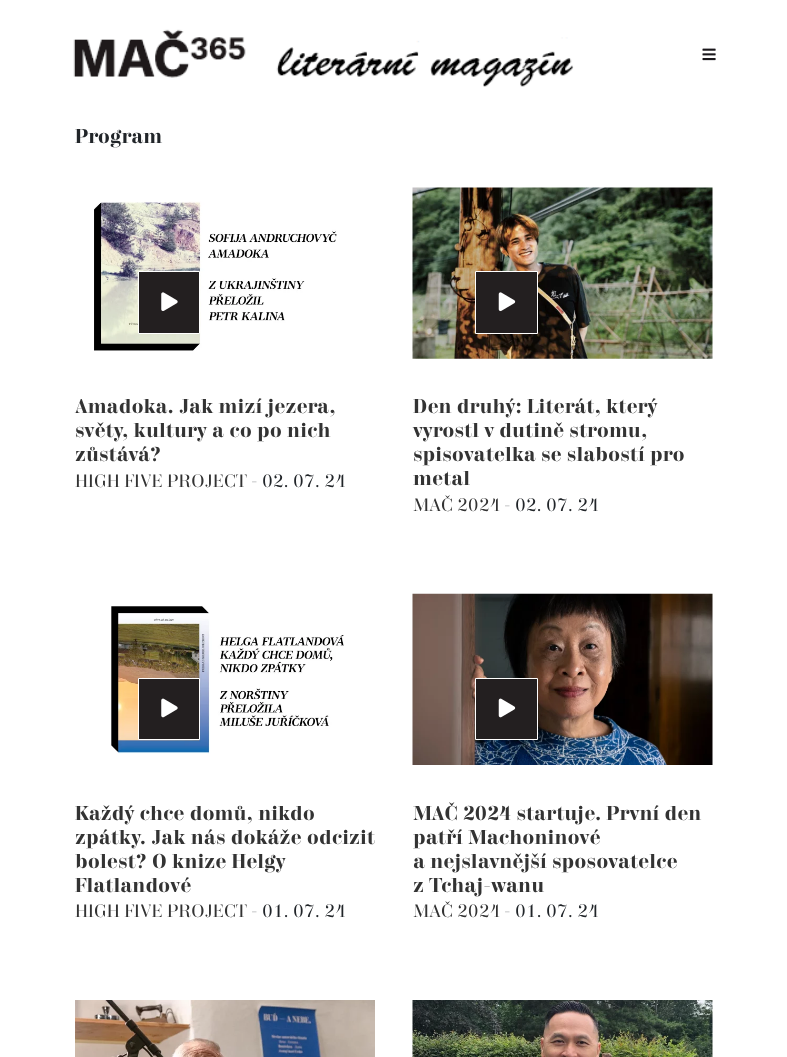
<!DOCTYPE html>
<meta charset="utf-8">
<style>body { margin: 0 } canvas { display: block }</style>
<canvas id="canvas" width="787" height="1057"></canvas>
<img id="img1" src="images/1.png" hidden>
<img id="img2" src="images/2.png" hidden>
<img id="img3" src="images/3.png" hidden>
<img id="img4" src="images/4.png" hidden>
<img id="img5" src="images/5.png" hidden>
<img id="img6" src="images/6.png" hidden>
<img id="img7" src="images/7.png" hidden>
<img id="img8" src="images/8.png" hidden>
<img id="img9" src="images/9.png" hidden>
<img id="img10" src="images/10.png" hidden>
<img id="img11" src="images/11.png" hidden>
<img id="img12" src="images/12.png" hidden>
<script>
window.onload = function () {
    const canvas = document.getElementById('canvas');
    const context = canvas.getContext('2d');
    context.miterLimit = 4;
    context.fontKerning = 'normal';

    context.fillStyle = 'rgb(255, 255, 255)';
    context.fillRect(0, 0, 787, 1057);
    context.drawImage(document.getElementById('img1'), 73, 29, 501, 58);
    context.drawImage(document.getElementById('img2'), 702, 48, 14, 13);
    context.drawImage(document.getElementById('img3'), 94, 201, 243, 150);
    context.fillStyle = 'rgb(35, 31, 32)';
    context.beginPath();
    context.rect(138.5, 271.5, 61, 62);
    context.fill();
    context.strokeStyle = 'rgb(255, 255, 255)';
    context.stroke();
    context.drawImage(document.getElementById('img4'), 161, 292, 17, 19);
    context.drawImage(document.getElementById('img5'), 412, 187, 301, 172);
    context.beginPath();
    context.rect(475.5, 271.5, 62, 62);
    context.fill();
    context.stroke();
    context.drawImage(document.getElementById('img6'), 498, 292, 18, 20);
    context.drawImage(document.getElementById('img7'), 111, 606, 233, 148);
    context.beginPath();
    context.rect(138.5, 678.5, 61, 61);
    context.fill();
    context.stroke();
    context.drawImage(document.getElementById('img8'), 161, 698, 17, 20);
    context.drawImage(document.getElementById('img9'), 412, 593, 301, 172);
    context.beginPath();
    context.rect(475.5, 678.5, 62, 61);
    context.fill();
    context.stroke();
    context.drawImage(document.getElementById('img10'), 498, 698, 18, 20);
    context.drawImage(document.getElementById('img11'), 75, 1000, 300, 57);
    context.drawImage(document.getElementById('img12'), 412, 1000, 301, 57);
    context.font = 'bold 20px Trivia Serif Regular';
    context.fillStyle = 'rgb(33, 37, 41)';
    context.fillText('Program', 75, 143);
    context.fillStyle = 'rgb(51, 51, 51)';
    context.fillText('Amadoka. Jak mizí jezera,', 75, 413);
    context.fillText('světy, kultury a co po nich', 75, 437);
    context.fillText('zůstává?', 75, 461);
    context.font = '18px Trivia Serif Regular';
    context.fillText('HIGH FIVE PROJECT', 75, 487);
    context.fillStyle = 'rgb(33, 37, 41)';
    context.fillText('- 02. 07. 24', 251, 487);
    context.font = 'bold 20px Trivia Serif Regular';
    context.fillStyle = 'rgb(51, 51, 51)';
    context.fillText('Den druhý: Literát, který', 413, 413);
    context.fillText('vyrostl v dutině stromu,', 413, 437);
    context.fillText('spisovatelka se slabostí pro', 413, 461);
    context.fillText('metal', 413, 485);
    context.font = '18px Trivia Serif Regular';
    context.fillText('MAČ 2024', 413, 511);
    context.fillStyle = 'rgb(33, 37, 41)';
    context.fillText('- 02. 07. 24', 504, 511);
    context.font = 'bold 20px Trivia Serif Regular';
    context.fillStyle = 'rgb(51, 51, 51)';
    context.fillText('Každý chce domů, nikdo', 75, 820);
    context.fillText('zpátky. Jak nás dokáže odcizit', 75, 844);
    context.fillText('bolest? O knize Helgy', 75, 868);
    context.fillText('Flatlandové', 75, 892);
    context.font = '18px Trivia Serif Regular';
    context.fillText('HIGH FIVE PROJECT', 75, 917);
    context.fillStyle = 'rgb(33, 37, 41)';
    context.fillText('- 01. 07. 24', 251, 917);
    context.font = 'bold 20px Trivia Serif Regular';
    context.fillStyle = 'rgb(51, 51, 51)';
    context.fillText('MAČ 2024 startuje. První den', 413, 820);
    context.fillText('patří Machoninové', 413, 844);
    context.fillText('a nejslavnější sposovatelce', 413, 868);
    context.fillText('z Tchaj-wanu', 413, 892);
    context.font = '18px Trivia Serif Regular';
    context.fillText('MAČ 2024', 413, 917);
    context.fillStyle = 'rgb(33, 37, 41)';
    context.fillText('- 01. 07. 24', 504, 917);
};
</script>
